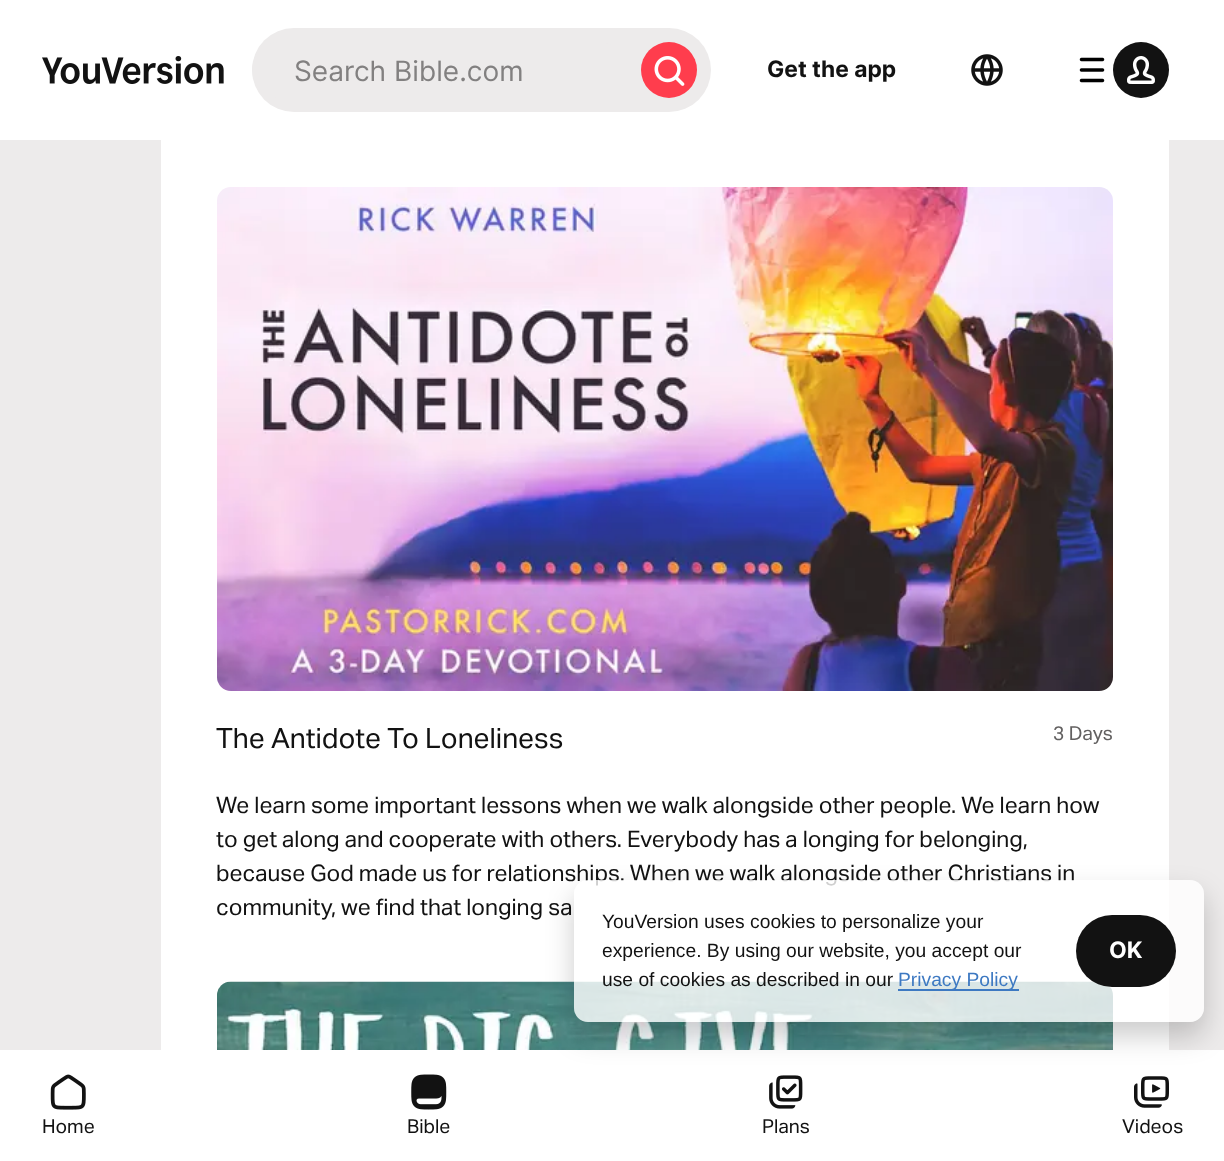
<!DOCTYPE html>
<meta charset="utf-8">
<style>body { margin: 0 } canvas { display: block }</style>
<canvas id="canvas" width="1224" height="1161"></canvas>
<img id="img1" src="images/1.png" hidden>
<img id="img2" src="images/2.png" hidden>
<img id="img3" src="images/3.png" hidden>
<img id="img4" src="images/4.png" hidden>
<img id="img5" src="images/5.png" hidden>
<img id="img6" src="images/6.png" hidden>
<img id="img7" src="images/7.png" hidden>
<img id="img8" src="images/10.png" hidden>
<img id="img9" src="images/11.png" hidden>
<img id="img10" src="images/8.png" hidden>
<img id="img11" src="images/9.png" hidden>
<script>
window.onload = function () {
    const canvas = document.getElementById('canvas');
    const context = canvas.getContext('2d');
    context.miterLimit = 4;
    context.fontKerning = 'normal';

    context.fillStyle = 'rgb(237, 235, 235)';
    context.fillRect(0, 0, 1224, 1161);
    context.fillStyle = 'rgb(255, 255, 255)';
    context.fillRect(0, 0, 1224, 140);
    context.drawImage(document.getElementById('img1'), 42, 56, 182, 28);
    context.fillStyle = 'rgb(237, 235, 235)';
    context.beginPath();
    context.roundRect(252, 28, 459, 84, 42);
    context.fill();
    context.beginPath();
    context.roundRect(252, 42, 375, 56, 28);
    context.fill();
    context.fillStyle = 'rgb(255, 61, 77)';
    context.beginPath();
    context.arc(669, 70, 28, 0, 2 * Math.PI);
    context.fill();
    context.drawImage(document.getElementById('img2'), 654, 56, 31, 30);
    context.drawImage(document.getElementById('img3'), 971, 54, 32, 32);
    context.drawImage(document.getElementById('img4'), 1079, 57, 26, 26);
    context.fillStyle = 'rgb(18, 18, 18)';
    context.beginPath();
    context.arc(1141, 70, 28, 0, 2 * Math.PI);
    context.fill();
    context.drawImage(document.getElementById('img5'), 1127, 56, 28, 28);
    context.fillStyle = 'rgb(255, 255, 255)';
    context.fillRect(161, 140, 1008, 910);
    context.drawImage(document.getElementById('img6'), 217, 187, 896, 504);
    context.drawImage(document.getElementById('img7'), 217, 981, 896, 69);
    context.fillRect(0, 1050, 1224, 111);
    context.drawImage(document.getElementById('img8'), 769, 1075, 34, 34);
    context.drawImage(document.getElementById('img9'), 1134, 1076, 35, 32);
    context.save();
    context.beginPath();
    context.moveTo(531, 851);
    context.lineTo(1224, 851);
    context.lineTo(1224, 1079);
    context.lineTo(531, 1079);
    context.closePath();
    context.moveTo(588, 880);
    context.lineTo(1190, 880);
    context.bezierCurveTo(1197.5, 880, 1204, 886.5, 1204, 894);
    context.lineTo(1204, 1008);
    context.bezierCurveTo(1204, 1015.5, 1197.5, 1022, 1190, 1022);
    context.lineTo(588, 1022);
    context.bezierCurveTo(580.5, 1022, 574, 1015.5, 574, 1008);
    context.lineTo(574, 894);
    context.bezierCurveTo(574, 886.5, 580.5, 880, 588, 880);
    context.closePath();
    context.clip('evenodd');
    context.fillStyle = 'rgba(0, 0, 0, 0.2)';
    context.filter = 'blur(14px)';
    context.beginPath();
    context.roundRect(574, 894, 630, 142, 14);
    context.fill();
    context.filter = 'none';
    context.restore();
    context.drawImage(document.getElementById('img10'), 50, 1074, 36, 36);
    context.drawImage(document.getElementById('img11'), 411, 1074, 36, 36);
    context.font = '28px Inter';
    context.fillStyle = 'rgb(130, 128, 128)';
    context.fillText('Search Bible.com', 294, 81);
    context.font = 'bold 22.75px Inter';
    context.fillStyle = 'rgb(18, 18, 18)';
    context.fillText('Get the app', 767, 77);
    context.font = '28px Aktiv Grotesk';
    context.fillText('The Antidote To Loneliness', 216, 748);
    context.font = '19.25px Aktiv Grotesk';
    context.fillStyle = 'rgb(99, 97, 97)';
    context.fillText('3 Days', 1053, 740);
    context.font = '22.75px Aktiv Grotesk';
    context.fillStyle = 'rgb(18, 18, 18)';
    context.fillText('We learn some important lessons when we walk alongside other people. We learn how', 216, 813);
    context.fillText('to get along and cooperate with others. Everybody has a longing for belonging,', 216, 847);
    context.fillText('because God made us for relationships. When we walk alongside other Christians in', 216, 881);
    context.fillText('community, we find that longing sa', 216, 915);
    context.fillStyle = 'rgba(255, 255, 255, 0.8)';
    context.beginPath();
    context.roundRect(574, 880, 630, 142, 14);
    context.fill();
    context.font = '19.25px Liberation Sans';
    context.fillStyle = 'rgb(18, 18, 18)';
    context.fillText('YouVersion uses cookies to personalize your', 602, 928);
    context.fillText('experience. By using our website, you accept our', 602, 957);
    context.fillText('use of cookies as described in our', 602, 986);
    context.fillStyle = 'rgb(61, 121, 194)';
    context.fillRect(898, 989, 121, 2);
    context.fillText('Privacy Policy', 898, 986);
    context.fillStyle = 'rgb(18, 18, 18)';
    context.beginPath();
    context.roundRect(1076, 915, 100, 72, 36);
    context.fill();
    context.font = 'bold 22.75px Inter';
    context.fillStyle = 'rgb(255, 255, 255)';
    context.fillText('OK', 1109, 958);
    context.font = '19.25px Aktiv Grotesk';
    context.fillStyle = 'rgb(18, 18, 18)';
    context.fillText('Home', 42, 1133);
    context.fillText('Bible', 407, 1133);
    context.fillText('Plans', 762, 1133);
    context.fillText('Videos', 1122, 1133);
};
</script>
